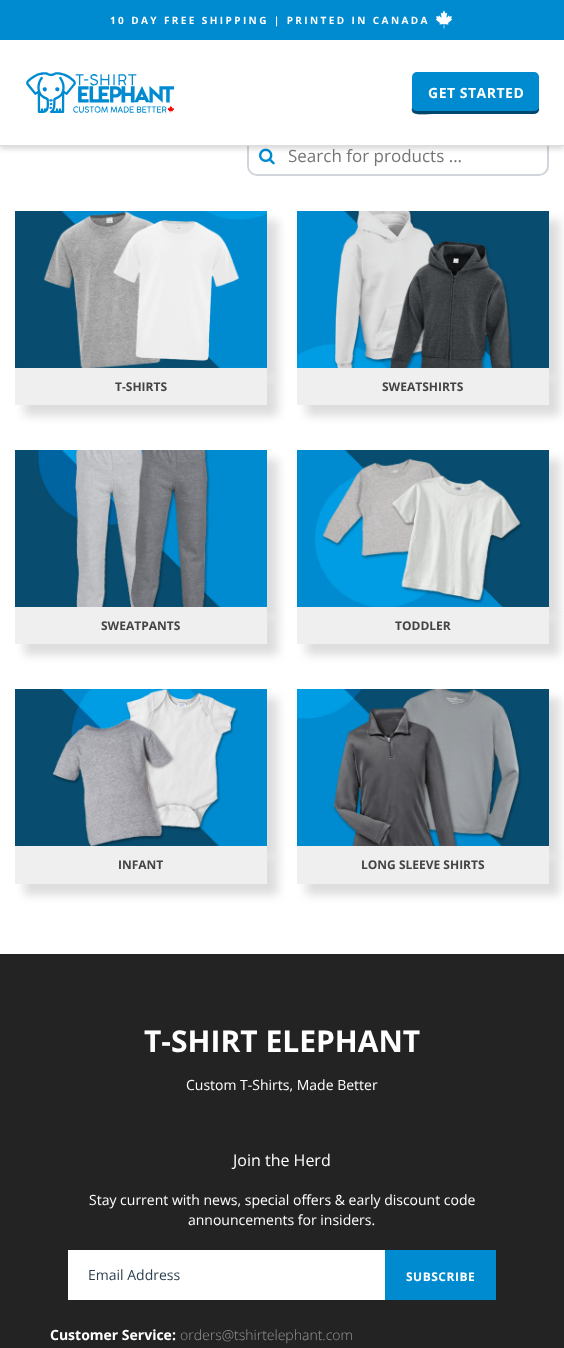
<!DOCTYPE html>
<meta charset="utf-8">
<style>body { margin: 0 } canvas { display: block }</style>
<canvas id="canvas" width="564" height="1348"></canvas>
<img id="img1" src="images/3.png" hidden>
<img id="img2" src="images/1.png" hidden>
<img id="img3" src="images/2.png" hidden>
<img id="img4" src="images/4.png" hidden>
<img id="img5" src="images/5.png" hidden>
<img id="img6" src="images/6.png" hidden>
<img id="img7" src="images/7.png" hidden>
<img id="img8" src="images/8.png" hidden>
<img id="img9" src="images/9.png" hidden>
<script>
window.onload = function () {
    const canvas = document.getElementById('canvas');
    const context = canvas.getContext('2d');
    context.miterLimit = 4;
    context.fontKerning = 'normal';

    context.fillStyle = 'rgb(255, 255, 255)';
    context.fillRect(0, 0, 564, 1348);
    context.beginPath();
    context.roundRect(248, 137, 300, 38, 9);
    context.strokeStyle = 'rgb(209, 213, 219)';
    context.lineWidth = 2;
    context.stroke();
    context.beginPath();
    context.roundRect(249, 138, 36, 36, [10, 0, 0, 10]);
    context.fill();
    context.drawImage(document.getElementById('img1'), 259, 148, 16, 17);
    context.fillStyle = 'rgba(0, 0, 0, 0.15)';
    context.filter = 'blur(2.5px)';
    context.beginPath();
    context.rect(0, 3, 564, 146);
    context.fill();
    context.filter = 'none';
    context.fillStyle = 'rgb(0, 139, 209)';
    context.fillRect(0, 0, 564, 40);
    context.drawImage(document.getElementById('img2'), 435, 10, 18, 19);
    context.fillStyle = 'rgb(255, 255, 255)';
    context.fillRect(0, 40, 564, 105);
    context.fillStyle = 'rgb(221, 221, 221)';
    context.fillRect(0, 145, 564, 1);
    context.drawImage(document.getElementById('img3'), 26, 72, 149, 41);
    context.fillStyle = 'rgb(0, 139, 209)';
    context.beginPath();
    context.roundRect(412, 72, 127, 42, 5);
    context.fill();
    context.fillStyle = 'rgba(0, 27, 41, 0.6)';
    context.beginPath();
    context.moveTo(412, 108);
    context.bezierCurveTo(409, 117, 425, 114, 436, 114);
    context.lineTo(534, 114);
    context.bezierCurveTo(537, 114, 540, 111, 539, 108);
    context.bezierCurveTo(538, 110, 536, 111, 534, 111);
    context.lineTo(417, 111);
    context.bezierCurveTo(415, 111, 413, 110, 412, 108);
    context.closePath();
    context.fill();
    context.fillStyle = 'rgb(221, 221, 221)';
    context.filter = 'blur(5px)';
    context.beginPath();
    context.rect(24, 220, 254, 159);
    context.fill();
    context.filter = 'none';
    context.drawImage(document.getElementById('img4'), 15, 211, 252, 157);
    context.filter = 'blur(5px)';
    context.beginPath();
    context.rect(24, 377, 254, 39);
    context.fill();
    context.filter = 'none';
    context.fillStyle = 'rgb(239, 239, 239)';
    context.fillRect(15, 368, 252, 37);
    context.fillStyle = 'rgb(221, 221, 221)';
    context.filter = 'blur(5px)';
    context.beginPath();
    context.rect(306, 220, 254, 159);
    context.fill();
    context.filter = 'none';
    context.drawImage(document.getElementById('img5'), 297, 211, 252, 157);
    context.filter = 'blur(5px)';
    context.beginPath();
    context.rect(306, 377, 254, 39);
    context.fill();
    context.filter = 'none';
    context.fillStyle = 'rgb(239, 239, 239)';
    context.fillRect(297, 368, 252, 37);
    context.fillStyle = 'rgb(221, 221, 221)';
    context.filter = 'blur(5px)';
    context.beginPath();
    context.rect(24, 459, 254, 159);
    context.fill();
    context.filter = 'none';
    context.drawImage(document.getElementById('img6'), 15, 450, 252, 157);
    context.filter = 'blur(5px)';
    context.beginPath();
    context.rect(24, 616, 254, 39);
    context.fill();
    context.filter = 'none';
    context.fillStyle = 'rgb(239, 239, 239)';
    context.fillRect(15, 607, 252, 37);
    context.fillStyle = 'rgb(221, 221, 221)';
    context.filter = 'blur(5px)';
    context.beginPath();
    context.rect(306, 459, 254, 159);
    context.fill();
    context.filter = 'none';
    context.drawImage(document.getElementById('img7'), 297, 450, 252, 157);
    context.filter = 'blur(5px)';
    context.beginPath();
    context.rect(306, 616, 254, 39);
    context.fill();
    context.filter = 'none';
    context.fillStyle = 'rgb(239, 239, 239)';
    context.fillRect(297, 607, 252, 37);
    context.fillStyle = 'rgb(221, 221, 221)';
    context.filter = 'blur(5px)';
    context.beginPath();
    context.rect(24, 698, 254, 159);
    context.fill();
    context.filter = 'none';
    context.drawImage(document.getElementById('img8'), 15, 689, 252, 157);
    context.filter = 'blur(5px)';
    context.beginPath();
    context.rect(24, 855, 254, 40);
    context.fill();
    context.filter = 'none';
    context.fillStyle = 'rgb(239, 239, 239)';
    context.fillRect(15, 846, 252, 38);
    context.fillStyle = 'rgb(221, 221, 221)';
    context.filter = 'blur(5px)';
    context.beginPath();
    context.rect(306, 698, 254, 159);
    context.fill();
    context.filter = 'none';
    context.drawImage(document.getElementById('img9'), 297, 689, 252, 157);
    context.filter = 'blur(5px)';
    context.beginPath();
    context.rect(306, 855, 254, 40);
    context.fill();
    context.filter = 'none';
    context.fillStyle = 'rgb(239, 239, 239)';
    context.fillRect(297, 846, 252, 38);
    context.fillStyle = 'rgb(35, 35, 35)';
    context.fillRect(0, 954, 564, 394);
    context.fillStyle = 'rgb(255, 255, 255)';
    context.fillRect(68, 1250, 317, 50);
    context.fillStyle = 'rgb(0, 139, 209)';
    context.fillRect(385, 1250, 111, 50);
    context.letterSpacing = '2.4px';
    context.font = 'bold 10px Open Sans';
    context.fillStyle = 'rgb(255, 255, 255)';
    context.fillText('10 DAY FREE SHIPPING | PRINTED IN CANADA', 110, 24);
    context.letterSpacing = '0.5px';
    context.font = 'bold 14px Open Sans';
    context.fillText('GET STARTED', 428, 98);
    context.letterSpacing = '0px';
    context.font = '17px Open Sans';
    context.fillStyle = 'rgb(117, 117, 117)';
    context.fillText('Search for products ...', 288, 162);
    context.font = 'bold 12px Open Sans';
    context.fillStyle = 'rgb(68, 68, 68)';
    context.fillText('T-SHIRTS', 115, 391);
    context.fillText('SWEATSHIRTS', 382, 391);
    context.fillText('SWEATPANTS', 101, 630);
    context.fillText('TODDLER', 395, 630);
    context.fillText('INFANT', 118, 869);
    context.fillText('LONG SLEEVE SHIRTS', 361, 869);
    context.font = 'bold 30px Open Sans';
    context.fillStyle = 'rgb(255, 255, 255)';
    context.fillText('T-SHIRT ELEPHANT', 144, 1052);
    context.font = '14px Open Sans';
    context.fillText('Custom T-Shirts, Made Better', 186, 1090);
    context.font = '16px Open Sans';
    context.fillText('Join the Herd', 233, 1166);
    context.font = '14px Open Sans';
    context.fillText('Stay current with news, special offers & early discount code', 89, 1205);
    context.fillText('announcements for insiders.', 188, 1225);
    context.fillStyle = 'rgb(44, 62, 80)';
    context.fillText('Email Address', 88, 1280);
    context.letterSpacing = '0.5px';
    context.font = 'bold 12px Open Sans';
    context.fillStyle = 'rgb(255, 255, 255)';
    context.fillText('SUBSCRIBE', 406, 1281);
    context.letterSpacing = '0px';
    context.font = 'bold 14px Open Sans';
    context.fillText('Customer Service:', 50, 1340);
    context.font = '300 14px Open Sans';
    context.fillStyle = 'rgb(153, 153, 153)';
    context.fillText('orders@tshirtelephant.com', 180, 1340);
};
</script>
